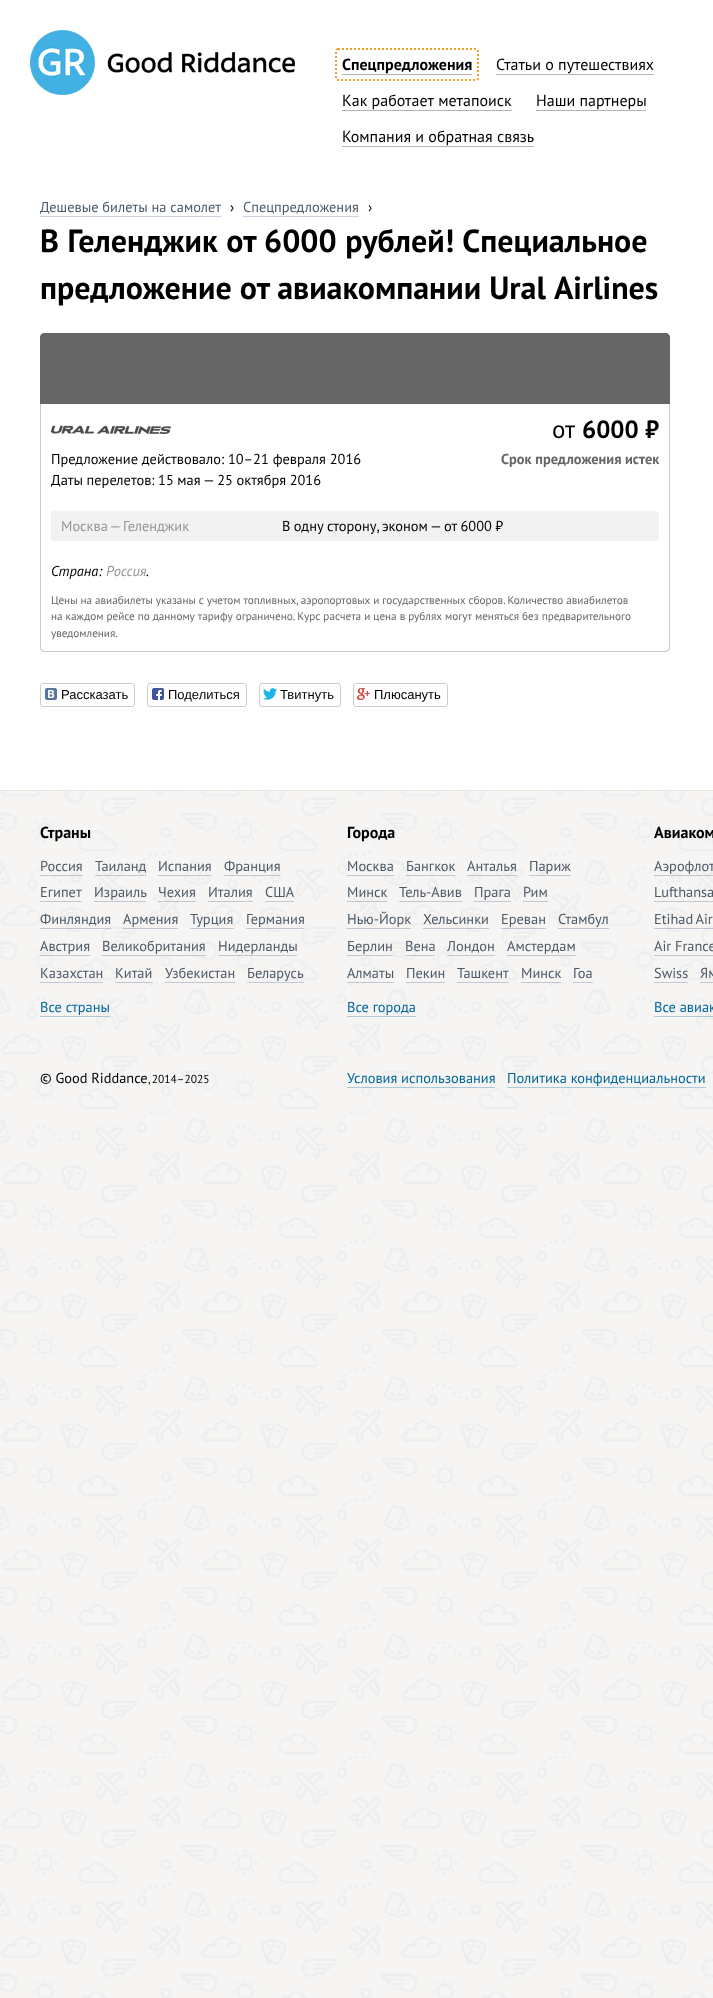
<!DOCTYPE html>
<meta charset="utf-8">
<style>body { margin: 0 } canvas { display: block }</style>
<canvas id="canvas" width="713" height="1998"></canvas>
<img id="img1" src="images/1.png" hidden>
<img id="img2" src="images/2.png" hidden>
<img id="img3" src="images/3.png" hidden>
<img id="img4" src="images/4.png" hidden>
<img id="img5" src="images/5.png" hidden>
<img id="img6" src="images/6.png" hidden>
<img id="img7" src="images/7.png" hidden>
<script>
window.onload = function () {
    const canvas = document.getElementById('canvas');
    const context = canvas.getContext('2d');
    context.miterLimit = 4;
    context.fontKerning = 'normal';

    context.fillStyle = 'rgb(246, 245, 243)';
    context.fillRect(0, 0, 713, 1998);
    context.drawImage(document.getElementById('img1'), 0, 791, 713, 1207);
    context.fillStyle = 'rgb(255, 255, 255)';
    context.fillRect(0, 0, 713, 790);
    context.fillStyle = 'rgb(237, 232, 222)';
    context.fillRect(0, 790, 713, 1);
    context.drawImage(document.getElementById('img2'), 30, 30, 265, 65);
    context.beginPath();
    context.moveTo(338, 49);
    context.lineTo(476, 49);
    context.bezierCurveTo(477, 49, 478, 50, 478, 51);
    context.lineTo(478, 78);
    context.bezierCurveTo(478, 79, 477, 80, 476, 80);
    context.lineTo(338, 80);
    context.bezierCurveTo(337, 80, 336, 79, 336, 78);
    context.lineTo(336, 51);
    context.bezierCurveTo(336, 50, 337, 49, 338, 49);
    context.closePath();
    context.strokeStyle = 'rgb(234, 160, 38)';
    context.lineWidth = 2;
    context.setLineDash([2, 2]);
    context.stroke();
    context.fillStyle = 'rgb(179, 179, 179)';
    context.fillRect(342, 74, 130, 1);
    context.fillRect(496, 74, 158, 1);
    context.fillRect(342, 110, 170, 1);
    context.fillRect(536, 110, 110, 1);
    context.fillRect(342, 146, 192, 1);
    context.fillStyle = 'rgb(202, 206, 221)';
    context.fillRect(40, 216, 181, 1);
    context.fillRect(243, 216, 116, 1);
    context.fillStyle = 'rgb(102, 102, 102)';
    context.beginPath();
    context.roundRect(40, 333, 630, 71, [5, 5, 0, 0]);
    context.fill();
    context.beginPath();
    context.moveTo(45, 333);
    context.lineTo(665, 333);
    context.bezierCurveTo(668, 333, 670, 335, 670, 338);
    context.lineTo(670, 404);
    context.lineTo(40, 404);
    context.lineTo(40, 338);
    context.bezierCurveTo(40, 335, 42, 333, 45, 333);
    context.closePath();
    context.moveTo(45, 334);
    context.lineTo(665, 334);
    context.bezierCurveTo(667, 334, 669, 336, 669, 338);
    context.lineTo(669, 404);
    context.lineTo(41, 404);
    context.lineTo(41, 338);
    context.bezierCurveTo(41, 336, 43, 334, 45, 334);
    context.closePath();
    context.fill('evenodd');
    context.fillStyle = 'rgb(203, 203, 203)';
    context.beginPath();
    context.moveTo(40, 404);
    context.lineTo(670, 404);
    context.lineTo(670, 647);
    context.bezierCurveTo(670, 650, 668, 652, 665, 652);
    context.lineTo(45, 652);
    context.bezierCurveTo(42, 652, 40, 650, 40, 647);
    context.closePath();
    context.moveTo(41, 404);
    context.lineTo(669, 404);
    context.lineTo(669, 647);
    context.bezierCurveTo(669, 649, 667, 651, 665, 651);
    context.lineTo(45, 651);
    context.bezierCurveTo(43, 651, 41, 649, 41, 647);
    context.closePath();
    context.fill('evenodd');
    context.drawImage(document.getElementById('img3'), 51, 425, 120, 9);
    context.fillStyle = 'rgb(242, 242, 242)';
    context.beginPath();
    context.roundRect(51, 511, 608, 30, 3);
    context.fill();
    context.beginPath();
    context.roundRect(40.5, 683.5, 94, 23, 2.5);
    context.strokeStyle = 'rgb(204, 204, 204)';
    context.lineWidth = 1;
    context.setLineDash([]);
    context.stroke();
    context.drawImage(document.getElementById('img4'), 45, 688, 12, 12);
    context.beginPath();
    context.roundRect(147.5, 683.5, 99, 23, 2.5);
    context.stroke();
    context.drawImage(document.getElementById('img5'), 152, 688, 12, 12);
    context.beginPath();
    context.roundRect(259.5, 683.5, 81, 23, 2.5);
    context.stroke();
    context.drawImage(document.getElementById('img6'), 263, 688, 14, 12);
    context.beginPath();
    context.roundRect(353.5, 683.5, 94, 23, 2.5);
    context.stroke();
    context.drawImage(document.getElementById('img7'), 357, 688, 13, 12);
    context.fillStyle = 'rgba(77, 90, 140, 0.3)';
    context.fillRect(40, 875, 43, 1);
    context.fillRect(95, 875, 51, 1);
    context.fillRect(158, 875, 54, 1);
    context.fillRect(224, 875, 56, 1);
    context.fillStyle = 'rgb(195, 199, 212)';
    context.fillRect(40, 901, 42, 1);
    context.fillStyle = 'rgb(195, 198, 212)';
    context.fillRect(94, 901, 52, 1);
    context.fillStyle = 'rgba(77, 90, 140, 0.3)';
    context.fillRect(158, 901, 38, 1);
    context.fillStyle = 'rgb(195, 199, 212)';
    context.fillRect(208, 901, 45, 1);
    context.fillRect(265, 901, 29, 1);
    context.fillStyle = 'rgba(77, 90, 140, 0.3)';
    context.fillRect(40, 928, 71, 1);
    context.fillRect(123, 928, 55, 1);
    context.fillStyle = 'rgb(195, 199, 212)';
    context.fillRect(190, 928, 44, 1);
    context.fillStyle = 'rgba(77, 90, 140, 0.3)';
    context.fillRect(246, 928, 58, 1);
    context.fillRect(40, 955, 50, 1);
    context.fillRect(102, 955, 104, 1);
    context.fillRect(218, 955, 79, 1);
    context.fillStyle = 'rgb(195, 199, 212)';
    context.fillRect(40, 982, 63, 1);
    context.fillStyle = 'rgb(195, 198, 212)';
    context.fillRect(115, 982, 38, 1);
    context.fillStyle = 'rgba(77, 90, 140, 0.3)';
    context.fillRect(165, 982, 70, 1);
    context.fillStyle = 'rgb(195, 199, 212)';
    context.fillRect(247, 982, 57, 1);
    context.fillStyle = 'rgba(0, 102, 153, 0.3)';
    context.fillRect(40, 1016, 70, 1);
    context.fillStyle = 'rgba(77, 90, 140, 0.3)';
    context.fillRect(347, 875, 47, 1);
    context.fillRect(406, 875, 49, 1);
    context.fillRect(467, 875, 50, 1);
    context.fillStyle = 'rgb(195, 199, 212)';
    context.fillRect(529, 875, 42, 1);
    context.fillStyle = 'rgba(77, 90, 140, 0.3)';
    context.fillRect(347, 901, 40, 1);
    context.fillStyle = 'rgb(195, 199, 212)';
    context.fillRect(399, 901, 63, 1);
    context.fillRect(474, 901, 37, 1);
    context.fillRect(523, 901, 25, 1);
    context.fillRect(347, 928, 64, 1);
    context.fillStyle = 'rgba(77, 90, 140, 0.3)';
    context.fillRect(423, 928, 66, 1);
    context.fillRect(501, 928, 45, 1);
    context.fillStyle = 'rgb(195, 199, 212)';
    context.fillRect(558, 928, 51, 1);
    context.fillRect(347, 955, 46, 1);
    context.fillStyle = 'rgba(77, 90, 140, 0.3)';
    context.fillRect(405, 955, 30, 1);
    context.fillRect(447, 955, 48, 1);
    context.fillStyle = 'rgb(195, 199, 212)';
    context.fillRect(507, 955, 69, 1);
    context.fillStyle = 'rgba(77, 90, 140, 0.3)';
    context.fillRect(347, 982, 47, 1);
    context.fillStyle = 'rgb(195, 199, 212)';
    context.fillRect(406, 982, 39, 1);
    context.fillRect(457, 982, 52, 1);
    context.fillStyle = 'rgba(77, 90, 140, 0.3)';
    context.fillRect(521, 982, 40, 1);
    context.fillStyle = 'rgb(195, 199, 212)';
    context.fillRect(573, 982, 20, 1);
    context.fillStyle = 'rgb(172, 202, 216)';
    context.fillRect(347, 1016, 69, 1);
    context.fillStyle = 'rgba(77, 90, 140, 0.3)';
    context.fillRect(654, 875, 59, 1);
    context.fillStyle = 'rgb(195, 199, 212)';
    context.fillRect(654, 901, 59, 1);
    context.fillStyle = 'rgba(77, 90, 140, 0.3)';
    context.fillRect(654, 928, 59, 1);
    context.fillStyle = 'rgb(195, 199, 212)';
    context.fillRect(654, 955, 59, 1);
    context.fillRect(654, 982, 34, 1);
    context.fillRect(700, 982, 13, 1);
    context.fillStyle = 'rgba(0, 102, 153, 0.3)';
    context.fillRect(654, 1016, 59, 1);
    context.fillRect(347, 1087, 148, 1);
    context.fillRect(507, 1087, 199, 1);
    context.font = 'bold 16px PT Sans';
    context.fillStyle = 'rgb(0, 0, 0)';
    context.fillText('Спецпредложения', 342, 70);
    context.font = '16px PT Sans';
    context.fillText('Статьи о путешествиях', 496, 70);
    context.fillText('Как работает метапоиск', 342, 106);
    context.fillText('Наши партнеры', 536, 106);
    context.fillText('Компания и обратная связь', 342, 142);
    context.font = '14.4px PT Sans';
    context.fillStyle = 'rgb(77, 90, 104)';
    context.fillText('Дешевые билеты на самолет', 40, 212);
    context.fillStyle = 'rgb(0, 0, 0)';
    context.fillText('›', 230, 212);
    context.fillStyle = 'rgb(77, 90, 104)';
    context.fillText('Спецпредложения', 243, 212);
    context.fillStyle = 'rgb(0, 0, 0)';
    context.fillText('›', 368, 212);
    context.wordSpacing = '0.5px';
    context.font = 'bold 32px PT Sans';
    context.fillText('В Геленджик от 6000 рублей! Специальное', 40, 252);
    context.wordSpacing = '0px';
    context.fillText('предложение от авиакомпании Ural Airlines', 40, 299);
    context.font = '25px PT Sans';
    context.fillText('от', 552, 438);
    context.font = 'bold 25px PT Sans';
    context.fillText('6000 ₽', 582, 438);
    context.font = '14.4px PT Sans';
    context.fillText('Предложение действовало: 10–21 февраля 2016', 51, 464);
    context.wordSpacing = '-0.25px';
    context.fillText('Даты перелетов: 15 мая — 25 октября 2016', 51, 485);
    context.wordSpacing = '0px';
    context.font = 'bold 14.4px PT Sans';
    context.fillStyle = 'rgb(102, 102, 102)';
    context.fillText('Срок предложения истек', 501, 464);
    context.wordSpacing = '-1px';
    context.font = '14.4px PT Sans';
    context.fillStyle = 'rgb(150, 150, 150)';
    context.fillText('Москва — Геленджик', 61, 531);
    context.wordSpacing = '-0.5px';
    context.fillStyle = 'rgb(0, 0, 0)';
    context.fillText('В одну сторону, эконом — от 6000 ₽', 282, 531);
    context.wordSpacing = '0px';
    context.font = 'italic 14.4px PT Sans';
    context.fillText('Страна:', 51, 576);
    context.fillStyle = 'rgb(150, 150, 150)';
    context.fillText('Россия', 106, 576);
    context.fillStyle = 'rgb(0, 0, 0)';
    context.fillText('.', 146, 576);
    context.wordSpacing = '-0.1px';
    context.font = '11.2px PT Sans';
    context.fillStyle = 'rgb(102, 102, 102)';
    context.fillText('Цены на авиабилеты указаны с учетом топливных, аэропортовых и государственных сборов. Количество авиабилетов', 51, 604);
    context.wordSpacing = '0px';
    context.fillText('на каждом рейсе по данному тарифу ограничено. Курс расчета и цена в рублях могут меняться без предварительного', 51, 620);
    context.fillText('уведомления.', 51, 637);
    context.font = '13px Liberation Sans';
    context.fillStyle = 'rgb(0, 0, 0)';
    context.fillText('Рассказать', 61, 699);
    context.fillText('Поделиться', 168, 699);
    context.fillText('Твитнуть', 280, 699);
    context.fillText('Плюсануть', 374, 699);
    context.font = 'bold 16px PT Sans';
    context.fillText('Страны', 40, 838);
    context.font = '14.4px PT Sans';
    context.fillStyle = 'rgb(77, 90, 104)';
    context.fillText('Россия', 40, 871);
    context.fillText('Таиланд', 95, 871);
    context.fillText('Испания', 158, 871);
    context.fillText('Франция', 224, 871);
    context.fillText('Египет', 40, 897);
    context.fillText('Израиль', 94, 897);
    context.fillText('Чехия', 158, 897);
    context.fillText('Италия', 208, 897);
    context.fillText('США', 265, 897);
    context.fillText('Финляндия', 40, 924);
    context.fillText('Армения', 123, 924);
    context.fillText('Турция', 190, 924);
    context.fillText('Германия', 246, 924);
    context.fillText('Австрия', 40, 951);
    context.fillText('Великобритания', 102, 951);
    context.fillText('Нидерланды', 218, 951);
    context.fillText('Казахстан', 40, 978);
    context.fillText('Китай', 115, 978);
    context.fillText('Узбекистан', 165, 978);
    context.fillText('Беларусь', 247, 978);
    context.fillStyle = 'rgb(0, 102, 153)';
    context.fillText('Все страны', 40, 1012);
    context.font = 'bold 16px PT Sans';
    context.fillStyle = 'rgb(0, 0, 0)';
    context.fillText('Города', 347, 838);
    context.font = '14.4px PT Sans';
    context.fillStyle = 'rgb(77, 90, 104)';
    context.fillText('Москва', 347, 871);
    context.fillText('Бангкок', 406, 871);
    context.fillText('Анталья', 467, 871);
    context.fillText('Париж', 529, 871);
    context.fillText('Минск', 347, 897);
    context.fillText('Тель-Авив', 399, 897);
    context.fillText('Прага', 474, 897);
    context.fillText('Рим', 523, 897);
    context.fillText('Нью-Йорк', 347, 924);
    context.fillText('Хельсинки', 423, 924);
    context.fillText('Ереван', 501, 924);
    context.fillText('Стамбул', 558, 924);
    context.fillText('Берлин', 347, 951);
    context.fillText('Вена', 405, 951);
    context.fillText('Лондон', 447, 951);
    context.fillText('Амстердам', 507, 951);
    context.fillText('Алматы', 347, 978);
    context.fillText('Пекин', 406, 978);
    context.fillText('Ташкент', 457, 978);
    context.fillText('Минск', 521, 978);
    context.fillText('Гоа', 573, 978);
    context.fillStyle = 'rgb(0, 102, 153)';
    context.fillText('Все города', 347, 1012);
    context.font = 'bold 16px PT Sans';
    context.fillStyle = 'rgb(0, 0, 0)';
    context.fillText('Авиаком', 654, 838);
    context.font = '14.4px PT Sans';
    context.fillStyle = 'rgb(77, 90, 104)';
    context.fillText('Аэрофлот', 654, 871);
    context.fillText('Lufthansa', 654, 897);
    context.wordSpacing = '-1px';
    context.fillText('Etihad Air', 654, 924);
    context.wordSpacing = '0px';
    context.fillText('Air France', 654, 951);
    context.fillText('Swiss', 654, 978);
    context.fillText('Ям', 700, 978);
    context.fillStyle = 'rgb(0, 102, 153)';
    context.fillText('Все авиак', 654, 1012);
    context.fillStyle = 'rgb(0, 0, 0)';
    context.fillText('© Good Riddance', 40, 1083);
    context.wordSpacing = '-1px';
    context.font = '11.5px PT Sans';
    context.fillText(', 2014–2025', 148, 1083);
    context.wordSpacing = '0px';
    context.font = '14.4px PT Sans';
    context.fillStyle = 'rgb(0, 102, 153)';
    context.fillText('Условия использования', 347, 1083);
    context.fillText('Политика конфиденциальности', 507, 1083);
};
</script>
